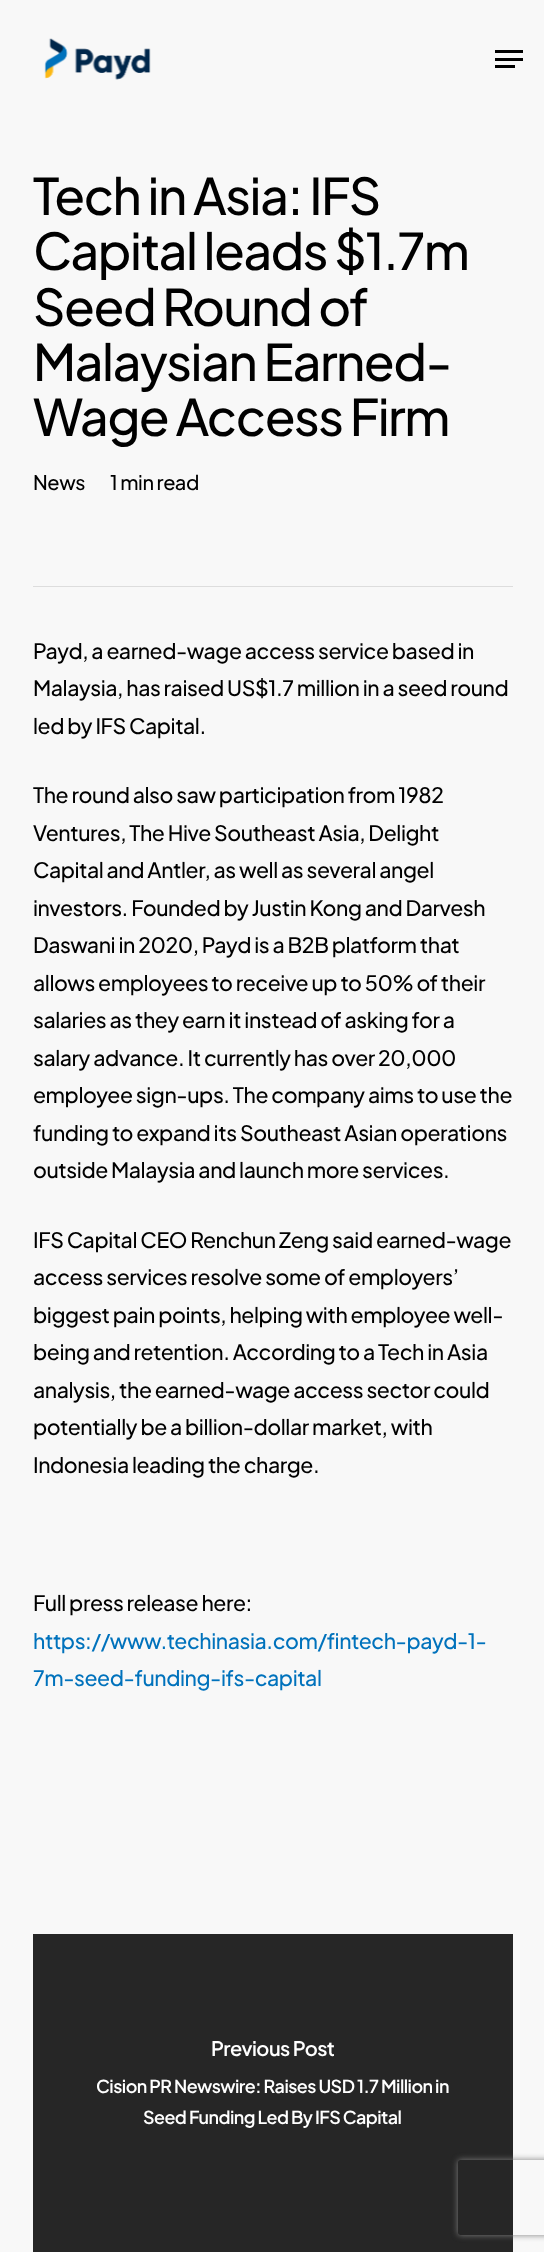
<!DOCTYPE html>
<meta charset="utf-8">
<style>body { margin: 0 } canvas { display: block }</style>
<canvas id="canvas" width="544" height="2252"></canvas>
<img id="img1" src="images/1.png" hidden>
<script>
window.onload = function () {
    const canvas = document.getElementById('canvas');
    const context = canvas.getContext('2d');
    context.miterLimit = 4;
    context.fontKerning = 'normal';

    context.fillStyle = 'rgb(248, 248, 248)';
    context.fillRect(0, 0, 544, 2252);
    context.drawImage(document.getElementById('img1'), 44, 38, 107, 42);
    context.fillStyle = 'rgb(0, 0, 0)';
    context.fillRect(495, 50, 28, 3);
    context.fillRect(495, 65, 20, 3);
    context.fillRect(495, 58, 28, 3);
    context.fillStyle = 'rgb(221, 221, 221)';
    context.fillRect(33, 586, 480, 1);
    context.fillStyle = 'rgb(38, 38, 38)';
    context.fillRect(33, 1934, 480, 318);
    context.save();
    context.beginPath();
    context.moveTo(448, 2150);
    context.lineTo(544, 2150);
    context.lineTo(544, 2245);
    context.lineTo(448, 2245);
    context.closePath();
    context.moveTo(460.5, 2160);
    context.lineTo(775.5, 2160);
    context.bezierCurveTo(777, 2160, 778, 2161, 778, 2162.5);
    context.lineTo(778, 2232.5);
    context.bezierCurveTo(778, 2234, 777, 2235, 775.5, 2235);
    context.lineTo(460.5, 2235);
    context.bezierCurveTo(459, 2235, 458, 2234, 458, 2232.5);
    context.lineTo(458, 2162.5);
    context.bezierCurveTo(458, 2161, 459, 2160, 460.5, 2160);
    context.closePath();
    context.clip('evenodd');
    context.fillStyle = 'rgb(128, 128, 128)';
    context.filter = 'blur(3px)';
    context.beginPath();
    context.roundRect(458, 2160, 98, 75, 2.5);
    context.fill();
    context.filter = 'none';
    context.restore();
    context.letterSpacing = '-1.5px';
    context.font = '500 50.4px Plus Jakarta Sans';
    context.fillStyle = 'rgb(0, 0, 0)';
    context.fillText('Tech in Asia: IFS', 33, 215);
    context.fillText('Capital leads $1.7m', 33, 270);
    context.fillText('Seed Round of', 33, 326);
    context.fillText('Malaysian Earned-', 33, 381);
    context.fillText('Wage Access Firm', 33, 436);
    context.letterSpacing = '-0.43px';
    context.font = '500 20px Plus Jakarta Sans';
    context.fillText('News', 33, 490);
    context.fillText('1 min read', 110, 490);
    context.font = '500 21.25px Plus Jakarta Sans';
    context.fillText('Payd, a earned-wage access service based in', 33, 659);
    context.fillText('Malaysia, has raised US$1.7 million in a seed round', 33, 696);
    context.fillText('led by IFS Capital.', 33, 734);
    context.fillText('The round also saw participation from 1982', 33, 803);
    context.fillText('Ventures, The Hive Southeast Asia, Delight', 33, 841);
    context.fillText('Capital and Antler, as well as several angel', 33, 878);
    context.fillText('investors. Founded by Justin Kong and Darvesh', 33, 916);
    context.fillText('Daswani in 2020, Payd is a B2B platform that', 33, 953);
    context.fillText('allows employees to receive up to 50% of their', 33, 991);
    context.fillText('salaries as they earn it instead of asking for a', 33, 1028);
    context.fillText('salary advance. It currently has over 20,000', 33, 1066);
    context.fillText('employee sign-ups. The company aims to use the', 33, 1103);
    context.fillText('funding to expand its Southeast Asian operations', 33, 1141);
    context.fillText('outside Malaysia and launch more services.', 33, 1178);
    context.fillText('IFS Capital CEO Renchun Zeng said earned-wage', 33, 1248);
    context.fillText('access services resolve some of employers’', 33, 1285);
    context.fillText('biggest pain points, helping with employee well-', 33, 1323);
    context.fillText('being and retention. According to a Tech in Asia', 33, 1360);
    context.fillText('analysis, the earned-wage access sector could', 33, 1398);
    context.fillText('potentially be a billion-dollar market, with', 33, 1435);
    context.fillText('Indonesia leading the charge.', 33, 1473);
    context.fillText('Full press release here:', 33, 1611);
    context.fillStyle = 'rgb(0, 114, 188)';
    context.fillText('https://www.techinasia.com/fintech-payd-1-', 33, 1649);
    context.fillText('7m-seed-funding-ifs-capital', 33, 1686);
    context.letterSpacing = '-0.55px';
    context.font = '600 20px Plus Jakarta Sans';
    context.fillStyle = 'rgb(255, 255, 255)';
    context.fillText('Previous Post', 211, 2056);
    context.font = '600 17.9px Plus Jakarta Sans';
    context.fillText('Cision PR Newswire: Raises USD 1.7 Million in', 96, 2093);
    context.fillText('Seed Funding Led By IFS Capital', 143, 2124);
};
</script>
